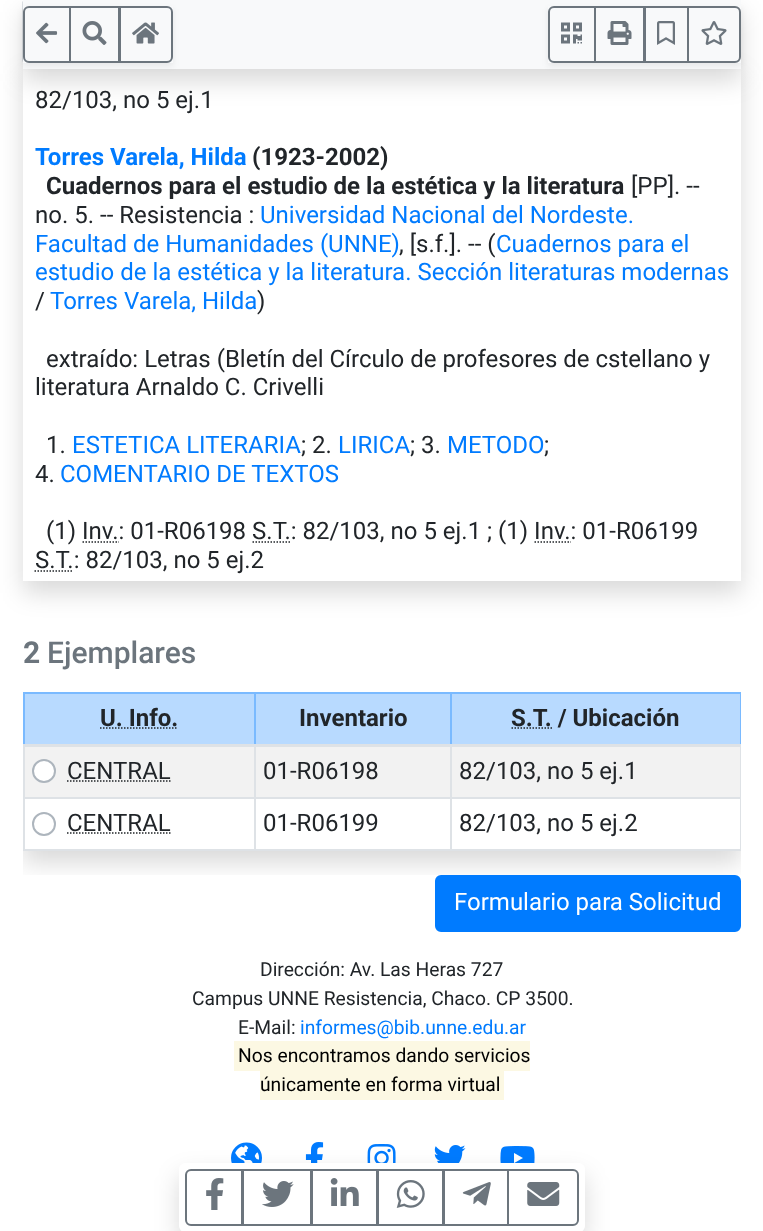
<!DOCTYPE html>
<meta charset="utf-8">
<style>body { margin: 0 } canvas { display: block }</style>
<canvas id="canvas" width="763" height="1231"></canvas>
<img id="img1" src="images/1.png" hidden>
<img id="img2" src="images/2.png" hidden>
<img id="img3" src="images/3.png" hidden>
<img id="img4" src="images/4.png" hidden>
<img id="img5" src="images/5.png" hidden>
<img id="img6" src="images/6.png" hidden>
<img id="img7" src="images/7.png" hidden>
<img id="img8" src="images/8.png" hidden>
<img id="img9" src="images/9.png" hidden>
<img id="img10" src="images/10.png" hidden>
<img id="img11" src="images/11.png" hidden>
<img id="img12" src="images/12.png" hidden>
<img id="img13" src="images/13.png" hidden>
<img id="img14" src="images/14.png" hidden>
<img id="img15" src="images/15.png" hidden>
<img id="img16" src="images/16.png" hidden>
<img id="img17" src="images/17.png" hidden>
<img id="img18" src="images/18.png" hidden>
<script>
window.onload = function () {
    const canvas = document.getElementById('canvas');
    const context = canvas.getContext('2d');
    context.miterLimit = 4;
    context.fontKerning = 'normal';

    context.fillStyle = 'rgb(255, 255, 255)';
    context.fillRect(0, 0, 763, 1231);
    context.save();
    context.beginPath();
    context.moveTo(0, 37);
    context.lineTo(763, 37);
    context.lineTo(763, 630);
    context.lineTo(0, 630);
    context.closePath();
    context.moveTo(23, 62);
    context.lineTo(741, 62);
    context.lineTo(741, 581);
    context.lineTo(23, 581);
    context.closePath();
    context.clip('evenodd');
    context.fillStyle = 'rgba(0, 0, 0, 0.15)';
    context.filter = 'blur(12px)';
    context.beginPath();
    context.rect(23, 74, 718, 519);
    context.fill();
    context.filter = 'none';
    context.restore();
    context.fillStyle = 'rgb(222, 226, 230)';
    context.beginPath();
    context.moveTo(22, 62);
    context.lineTo(22, 2);
    context.lineTo(24, 0);
    context.lineTo(25, 1);
    context.lineTo(24, 4);
    context.lineTo(24, 60);
    context.closePath();
    context.fill();
    context.fillStyle = 'rgba(0, 0, 0, 0.15)';
    context.filter = 'blur(12px)';
    context.beginPath();
    context.rect(23, 12, 718, 69);
    context.fill();
    context.filter = 'none';
    context.fillStyle = 'rgb(248, 249, 250)';
    context.fillRect(23, 0, 718, 69);
    context.save();
    context.beginPath();
    context.moveTo(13, 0);
    context.lineTo(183, 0);
    context.lineTo(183, 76);
    context.lineTo(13, 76);
    context.closePath();
    context.moveTo(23, 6);
    context.lineTo(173, 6);
    context.lineTo(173, 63);
    context.lineTo(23, 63);
    context.closePath();
    context.clip('evenodd');
    context.fillStyle = 'rgba(0, 0, 0, 0.07)';
    context.filter = 'blur(3px)';
    context.beginPath();
    context.rect(23, 9, 150, 57);
    context.fill();
    context.filter = 'none';
    context.restore();
    context.beginPath();
    context.roundRect(24, 7, 46, 55, [5, 0, 0, 5]);
    context.strokeStyle = 'rgb(108, 117, 125)';
    context.lineWidth = 2;
    context.stroke();
    context.drawImage(document.getElementById('img1'), 36, 22, 22, 22);
    context.strokeRect(70, 7, 49, 55);
    context.drawImage(document.getElementById('img2'), 82, 21, 25, 24);
    context.beginPath();
    context.roundRect(120, 7, 52, 55, [0, 5, 5, 0]);
    context.stroke();
    context.drawImage(document.getElementById('img3'), 132, 22, 27, 22);
    context.save();
    context.beginPath();
    context.moveTo(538, 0);
    context.lineTo(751, 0);
    context.lineTo(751, 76);
    context.lineTo(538, 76);
    context.closePath();
    context.moveTo(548, 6);
    context.lineTo(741, 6);
    context.lineTo(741, 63);
    context.lineTo(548, 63);
    context.closePath();
    context.clip('evenodd');
    context.fillStyle = 'rgba(0, 0, 0, 0.07)';
    context.filter = 'blur(3px)';
    context.beginPath();
    context.rect(548, 9, 193, 57);
    context.fill();
    context.filter = 'none';
    context.restore();
    context.beginPath();
    context.roundRect(549, 7, 46, 55, [5, 0, 0, 5]);
    context.stroke();
    context.drawImage(document.getElementById('img4'), 561, 22, 21, 22);
    context.strokeRect(595, 7, 49, 55);
    context.drawImage(document.getElementById('img5'), 607, 21, 25, 24);
    context.strokeRect(645, 7, 43, 55);
    context.drawImage(document.getElementById('img6'), 657, 21, 18, 24);
    context.beginPath();
    context.roundRect(688, 7, 52, 55, [0, 5, 5, 0]);
    context.stroke();
    context.drawImage(document.getElementById('img7'), 701, 21, 26, 24);
    context.beginPath();
    context.moveTo(82.5, 542);
    context.lineTo(119, 542);
    context.strokeStyle = 'rgb(33, 37, 41)';
    context.lineWidth = 1.5;
    context.setLineDash([1.5, 1.5]);
    context.stroke();
    context.beginPath();
    context.moveTo(252.5, 542);
    context.lineTo(291, 542);
    context.stroke();
    context.beginPath();
    context.moveTo(534.5, 542);
    context.lineTo(571, 542);
    context.stroke();
    context.beginPath();
    context.moveTo(34.5, 571);
    context.lineTo(73, 571);
    context.stroke();
    context.save();
    context.beginPath();
    context.rect(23, 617, 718, 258);
    context.clip();
    context.beginPath();
    context.rect(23, 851, 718, 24);
    context.clip();
    context.fillStyle = 'rgba(0, 0, 0, 0.15)';
    context.filter = 'blur(12px)';
    context.beginPath();
    context.rect(23, 629, 718, 234);
    context.fill();
    context.filter = 'none';
    context.restore();
    context.fillStyle = 'rgb(184, 218, 255)';
    context.fillRect(25, 694, 715, 50);
    context.fillStyle = 'rgb(122, 186, 255)';
    context.fillRect(450, 692, 291, 2);
    context.fillStyle = 'rgb(242, 242, 242)';
    context.fillRect(25, 747, 715, 50);
    context.fillStyle = 'rgb(222, 226, 230)';
    context.fillRect(450, 797, 291, 2);
    context.fillRect(740, 744, 1, 107);
    context.fillRect(450, 849, 291, 2);
    context.fillRect(450, 797, 2, 54);
    context.fillRect(254, 797, 198, 2);
    context.fillRect(450, 744, 2, 54);
    context.fillStyle = 'rgb(122, 186, 255)';
    context.fillRect(450, 692, 2, 54);
    context.fillRect(254, 692, 198, 2);
    context.fillStyle = 'rgb(222, 226, 230)';
    context.fillRect(254, 849, 198, 2);
    context.fillRect(254, 797, 2, 54);
    context.fillRect(23, 797, 232, 2);
    context.fillRect(254, 744, 2, 54);
    context.fillStyle = 'rgb(122, 186, 255)';
    context.fillRect(254, 692, 2, 54);
    context.fillRect(23, 692, 232, 2);
    context.fillStyle = 'rgb(222, 226, 230)';
    context.fillRect(23, 849, 232, 2);
    context.fillRect(23, 744, 2, 107);
    context.fillStyle = 'rgb(122, 186, 255)';
    context.fillRect(23, 692, 2, 54);
    context.beginPath();
    context.moveTo(100, 728);
    context.lineTo(178, 728);
    context.stroke();
    context.fillRect(740, 692, 1, 54);
    context.fillStyle = 'rgb(222, 226, 230)';
    context.fillRect(23, 744, 718, 3);
    context.beginPath();
    context.moveTo(511.5, 728);
    context.lineTo(552, 728);
    context.stroke();
    context.fillStyle = 'rgb(255, 255, 255)';
    context.beginPath();
    context.arc(44, 771, 11, 0, 2 * Math.PI);
    context.fill();
    context.strokeStyle = 'rgb(173, 181, 189)';
    context.lineWidth = 2;
    context.setLineDash([]);
    context.stroke();
    context.beginPath();
    context.moveTo(67, 781);
    context.lineTo(171, 781);
    context.strokeStyle = 'rgb(33, 37, 41)';
    context.lineWidth = 1.5;
    context.setLineDash([1.5, 1.5]);
    context.stroke();
    context.beginPath();
    context.arc(44, 824, 11, 0, 2 * Math.PI);
    context.strokeStyle = 'rgb(173, 181, 189)';
    context.lineWidth = 2;
    context.setLineDash([]);
    context.stroke();
    context.beginPath();
    context.moveTo(67, 833);
    context.lineTo(171, 833);
    context.strokeStyle = 'rgb(33, 37, 41)';
    context.lineWidth = 1.5;
    context.setLineDash([1.5, 1.5]);
    context.stroke();
    context.fillStyle = 'rgb(0, 123, 255)';
    context.beginPath();
    context.roundRect(436, 876, 304, 55, 5);
    context.fill();
    context.strokeStyle = 'rgb(0, 123, 255)';
    context.lineWidth = 2;
    context.setLineDash([]);
    context.stroke();
    context.fillStyle = 'rgb(252, 248, 227)';
    context.fillRect(234, 1041, 296, 30);
    context.fillRect(260, 1071, 244, 29);
    context.drawImage(document.getElementById('img8'), 231, 1142, 31, 21);
    context.drawImage(document.getElementById('img9'), 305, 1142, 19, 21);
    context.drawImage(document.getElementById('img10'), 367, 1144, 29, 19);
    context.drawImage(document.getElementById('img11'), 434, 1145, 32, 18);
    context.drawImage(document.getElementById('img12'), 500, 1146, 35, 17);
    context.fillStyle = 'rgba(0, 0, 0, 0.15)';
    context.filter = 'blur(12px)';
    context.beginPath();
    context.roundRect(179, 1175, 406, 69, 6);
    context.fill();
    context.filter = 'none';
    context.fillStyle = 'rgb(255, 255, 255)';
    context.beginPath();
    context.roundRect(179, 1163, 406, 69, 6);
    context.fill();
    context.beginPath();
    context.roundRect(186, 1170, 56, 55, [5, 0, 0, 5]);
    context.strokeStyle = 'rgb(108, 117, 125)';
    context.stroke();
    context.drawImage(document.getElementById('img13'), 206, 1178, 18, 32);
    context.strokeRect(243, 1170, 68, 55);
    context.drawImage(document.getElementById('img14'), 262, 1181, 32, 26);
    context.strokeRect(312, 1170, 65, 55);
    context.drawImage(document.getElementById('img15'), 330, 1178, 29, 28);
    context.strokeRect(378, 1170, 65, 55);
    context.drawImage(document.getElementById('img16'), 396, 1180, 29, 28);
    context.strokeRect(444, 1170, 64, 55);
    context.drawImage(document.getElementById('img17'), 462, 1182, 29, 24);
    context.beginPath();
    context.roundRect(508, 1170, 70, 55, [0, 5, 5, 0]);
    context.stroke();
    context.drawImage(document.getElementById('img18'), 527, 1182, 33, 24);
    context.font = '24px Roboto';
    context.fillStyle = 'rgb(33, 37, 41)';
    context.fillText('82/103, no 5 ej.1', 35, 108);
    context.font = 'bold 24px Roboto';
    context.fillStyle = 'rgb(0, 123, 255)';
    context.fillText('Torres Varela, Hilda', 35, 165);
    context.fillStyle = 'rgb(33, 37, 41)';
    context.fillText('(1923-2002)', 252, 165);
    context.fillText('Cuadernos para el estudio de la estética y la literatura', 46, 194);
    context.font = '24px Roboto';
    context.fillText('[PP]. --', 631, 194);
    context.fillText('no. 5. -- Resistencia :', 35, 223);
    context.fillStyle = 'rgb(0, 123, 255)';
    context.fillText('Universidad Nacional del Nordeste.', 260, 223);
    context.fillText('Facultad de Humanidades (UNNE)', 35, 252);
    context.fillStyle = 'rgb(33, 37, 41)';
    context.fillText(', [s.f.]. -- (', 399, 252);
    context.fillStyle = 'rgb(0, 123, 255)';
    context.fillText('Cuadernos para el', 496, 252);
    context.fillText('estudio de la estética y la literatura. Sección literaturas modernas', 35, 280);
    context.fillStyle = 'rgb(33, 37, 41)';
    context.fillText('/', 35, 309);
    context.fillStyle = 'rgb(0, 123, 255)';
    context.fillText('Torres Varela, Hilda', 50, 309);
    context.fillStyle = 'rgb(33, 37, 41)';
    context.fillText(')', 257, 309);
    context.fillText('extraído: Letras (Bletín del Círculo de profesores de cstellano y', 46, 367);
    context.fillText('literatura Arnaldo C. Crivelli', 35, 395);
    context.fillText('1.', 46, 453);
    context.fillStyle = 'rgb(0, 123, 255)';
    context.fillText('ESTETICA LITERARIA', 72, 453);
    context.fillStyle = 'rgb(33, 37, 41)';
    context.fillText('; 2.', 301, 453);
    context.fillStyle = 'rgb(0, 123, 255)';
    context.fillText('LIRICA', 338, 453);
    context.fillStyle = 'rgb(33, 37, 41)';
    context.fillText('; 3.', 410, 453);
    context.fillStyle = 'rgb(0, 123, 255)';
    context.fillText('METODO', 447, 453);
    context.fillStyle = 'rgb(33, 37, 41)';
    context.fillText(';', 544, 453);
    context.fillText('4.', 35, 482);
    context.fillStyle = 'rgb(0, 123, 255)';
    context.fillText('COMENTARIO DE TEXTOS', 60, 482);
    context.fillStyle = 'rgb(33, 37, 41)';
    context.fillText('(1) Inv.: 01-R06198 S.T.: 82/103, no 5 ej.1 ; (1) Inv.: 01-R06199', 46, 539);
    context.fillText('S.T.: 82/103, no 5 ej.2', 35, 568);
    context.font = 'bold 30px Roboto';
    context.fillStyle = 'rgb(108, 117, 125)';
    context.fillText('2', 23, 663);
    context.font = '500 30px Roboto';
    context.fillText('Ejemplares', 47, 663);
    context.font = 'bold 24px Roboto';
    context.fillStyle = 'rgb(33, 37, 41)';
    context.fillText('U. Info.', 100, 726);
    context.fillText('Inventario', 299, 726);
    context.fillText('S.T. / Ubicación', 511, 726);
    context.font = '24px Roboto';
    context.fillText('CENTRAL', 67, 779);
    context.fillText('01-R06198', 263, 779);
    context.fillText('82/103, no 5 ej.1', 459, 779);
    context.fillText('CENTRAL', 67, 831);
    context.fillText('01-R06199', 263, 831);
    context.fillText('82/103, no 5 ej.2', 459, 831);
    context.fillStyle = 'rgb(255, 255, 255)';
    context.fillText('Formulario para Solicitud', 454, 910);
    context.font = '19.25px Roboto';
    context.fillStyle = 'rgb(33, 37, 41)';
    context.fillText('Dirección: Av. Las Heras 727', 260, 976);
    context.fillText('Campus UNNE Resistencia, Chaco. CP 3500.', 192, 1005);
    context.fillText('E-Mail:', 238, 1034);
    context.fillStyle = 'rgb(0, 123, 255)';
    context.fillText('informes@bib.unne.edu.ar', 300, 1034);
    context.fillStyle = 'rgb(0, 0, 0)';
    context.fillText('Nos encontramos dando servicios', 238, 1062);
    context.fillText('únicamente en forma virtual', 260, 1091);
};
</script>
